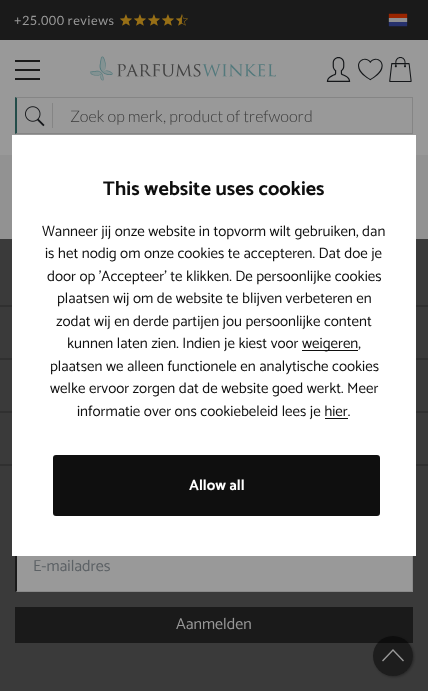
<!DOCTYPE html>
<meta charset="utf-8">
<style>body { margin: 0 } canvas { display: block }</style>
<canvas id="canvas" width="428" height="691"></canvas>
<img id="img1" src="images/1.png" hidden>
<img id="img2" src="images/2.png" hidden>
<img id="img3" src="images/3.png" hidden>
<img id="img4" src="images/4.png" hidden>
<img id="img5" src="images/5.png" hidden>
<img id="img6" src="images/6.png" hidden>
<img id="img7" src="images/7.png" hidden>
<img id="img8" src="images/8.png" hidden>
<script>
window.onload = function () {
    const canvas = document.getElementById('canvas');
    const context = canvas.getContext('2d');
    context.miterLimit = 4;
    context.fontKerning = 'normal';

    context.fillStyle = 'rgb(146, 146, 146)';
    context.fillRect(0, 0, 428, 691);
    context.fillStyle = 'rgb(153, 153, 153)';
    context.fillRect(0, 40, 428, 115);
    context.fillStyle = 'rgb(26, 26, 26)';
    context.fillRect(0, 0, 428, 40);
    context.drawImage(document.getElementById('img1'), 120, 14, 12, 12);
    context.drawImage(document.getElementById('img1'), 134, 14, 12, 12);
    context.drawImage(document.getElementById('img1'), 148, 14, 12, 12);
    context.drawImage(document.getElementById('img1'), 162, 14, 12, 12);
    context.drawImage(document.getElementById('img2'), 176, 14, 12, 12);
    context.drawImage(document.getElementById('img3'), 388, 13, 20, 14);
    context.fillRect(15, 60, 25, 2);
    context.fillRect(15, 69, 25, 2);
    context.fillRect(15, 78, 25, 2);
    context.drawImage(document.getElementById('img4'), 90, 56, 186, 25);
    context.drawImage(document.getElementById('img5'), 326, 57, 25, 25);
    context.drawImage(document.getElementById('img6'), 358, 58, 25, 23);
    context.drawImage(document.getElementById('img7'), 389, 57, 23, 25);
    context.fillStyle = 'rgb(133, 133, 133)';
    context.fillRect(52, 103, 1, 25);
    context.drawImage(document.getElementById('img8'), 25, 106, 20, 21);
    context.beginPath();
    context.moveTo(15, 97);
    context.lineTo(413, 97);
    context.lineTo(412, 98);
    context.lineTo(17, 98);
    context.closePath();
    context.fill();
    context.fillRect(412, 97, 1, 37);
    context.beginPath();
    context.moveTo(413, 134);
    context.lineTo(15, 134);
    context.lineTo(17, 133);
    context.lineTo(412, 133);
    context.closePath();
    context.fill();
    context.fillStyle = 'rgb(35, 76, 73)';
    context.beginPath();
    context.moveTo(15, 134);
    context.lineTo(15, 97);
    context.lineTo(17, 98);
    context.lineTo(17, 133);
    context.closePath();
    context.fill();
    context.fillStyle = 'rgb(58, 58, 58)';
    context.fillRect(0, 239, 428, 452);
    context.fillStyle = 'rgb(48, 48, 48)';
    context.fillRect(0, 305, 428, 2);
    context.fillRect(0, 358, 428, 2);
    context.fillRect(0, 411, 428, 2);
    context.fillRect(0, 464, 428, 2);
    context.fillStyle = 'rgb(138, 138, 138)';
    context.fillRect(412, 556, 1, 36);
    context.beginPath();
    context.moveTo(413, 592);
    context.lineTo(15, 592);
    context.lineTo(17, 591);
    context.lineTo(412, 591);
    context.closePath();
    context.fill();
    context.fillStyle = 'rgb(26, 26, 26)';
    context.beginPath();
    context.moveTo(15, 592);
    context.lineTo(15, 542);
    context.lineTo(17, 543);
    context.lineTo(17, 591);
    context.closePath();
    context.fill();
    context.fillStyle = 'rgb(255, 255, 255)';
    context.fillRect(12, 135, 404, 421);
    context.fillStyle = 'rgb(15, 15, 15)';
    context.fillRect(302, 350, 56, 1);
    context.fillRect(325, 418, 23, 1);
    context.beginPath();
    context.roundRect(54, 456, 325, 59, 2);
    context.fill();
    context.strokeStyle = 'rgb(15, 15, 15)';
    context.lineWidth = 2;
    context.stroke();
    context.fillStyle = 'rgb(153, 153, 153)';
    context.fillRect(17, 556, 395, 35);
    context.fillStyle = 'rgb(26, 26, 26)';
    context.fillRect(15, 607, 398, 36);
    context.save();
    context.beginPath();
    context.moveTo(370, 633);
    context.lineTo(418, 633);
    context.lineTo(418, 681);
    context.lineTo(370, 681);
    context.closePath();
    context.moveTo(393, 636);
    context.bezierCurveTo(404, 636, 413, 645, 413, 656);
    context.bezierCurveTo(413, 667, 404, 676, 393, 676);
    context.bezierCurveTo(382, 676, 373, 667, 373, 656);
    context.bezierCurveTo(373, 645, 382, 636, 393, 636);
    context.closePath();
    context.clip('evenodd');
    context.fillStyle = 'rgba(0, 0, 0, 0.3)';
    context.filter = 'blur(1px)';
    context.beginPath();
    context.roundRect(374, 637, 40, 40, 20);
    context.fill();
    context.filter = 'none';
    context.restore();
    context.fillStyle = 'rgba(0, 0, 0, 0.5)';
    context.beginPath();
    context.arc(393, 656, 20, 0, 2 * Math.PI);
    context.fill();
    context.fillStyle = 'rgb(153, 153, 153)';
    context.beginPath();
    context.moveTo(403, 661.5);
    context.lineTo(393, 651);
    context.lineTo(383, 661.5);
    context.lineTo(382, 660.5);
    context.lineTo(393, 649);
    context.lineTo(404, 660.5);
    context.closePath();
    context.fill();
    context.letterSpacing = '0.5px';
    context.font = '12.75px Lato';
    context.fillText('+25.000 reviews', 14, 25);
    context.letterSpacing = '0px';
    context.font = '300 16px Lato';
    context.fillStyle = 'rgb(58, 58, 58)';
    context.fillText('Zoek op merk, product of trefwoord', 70, 122);
    context.font = 'bold 20px Catamaran';
    context.fillStyle = 'rgb(15, 15, 15)';
    context.fillText('This website uses cookies', 103, 195);
    context.font = '15px Catamaran';
    context.fillText('Wanneer jij onze website in topvorm wilt gebruiken, dan', 42, 236);
    context.fillText('is het nodig om onze cookies te accepteren. Dat doe je', 45, 258);
    context.fillText('door op \'Accepteer\' te klikken. De persoonlijke cookies', 47, 281);
    context.fillText('plaatsen wij om de website te blijven verbeteren en', 57, 303);
    context.fillText('zodat wij en derde partijen jou persoonlijke content', 56, 326);
    context.fillText('kunnen laten zien. Indien je kiest voor', 67, 348);
    context.fillText('weigeren,', 302, 348);
    context.fillText('plaatsen we alleen functionele en analytische cookies', 50, 371);
    context.fillText('welke ervoor zorgen dat de website goed werkt. Meer', 50, 393);
    context.fillText('informatie over ons cookiebeleid lees je hier.', 77, 416);
    context.font = 'bold 15px Catamaran';
    context.fillStyle = 'rgb(255, 255, 255)';
    context.fillText('Allow all', 189, 490);
    context.font = '16px Catamaran';
    context.fillStyle = 'rgb(92, 97, 101)';
    context.fillText('E-mailadres', 33, 571);
    context.fillStyle = 'rgb(153, 153, 153)';
    context.fillText('Aanmelden', 176, 629);
};
</script>
